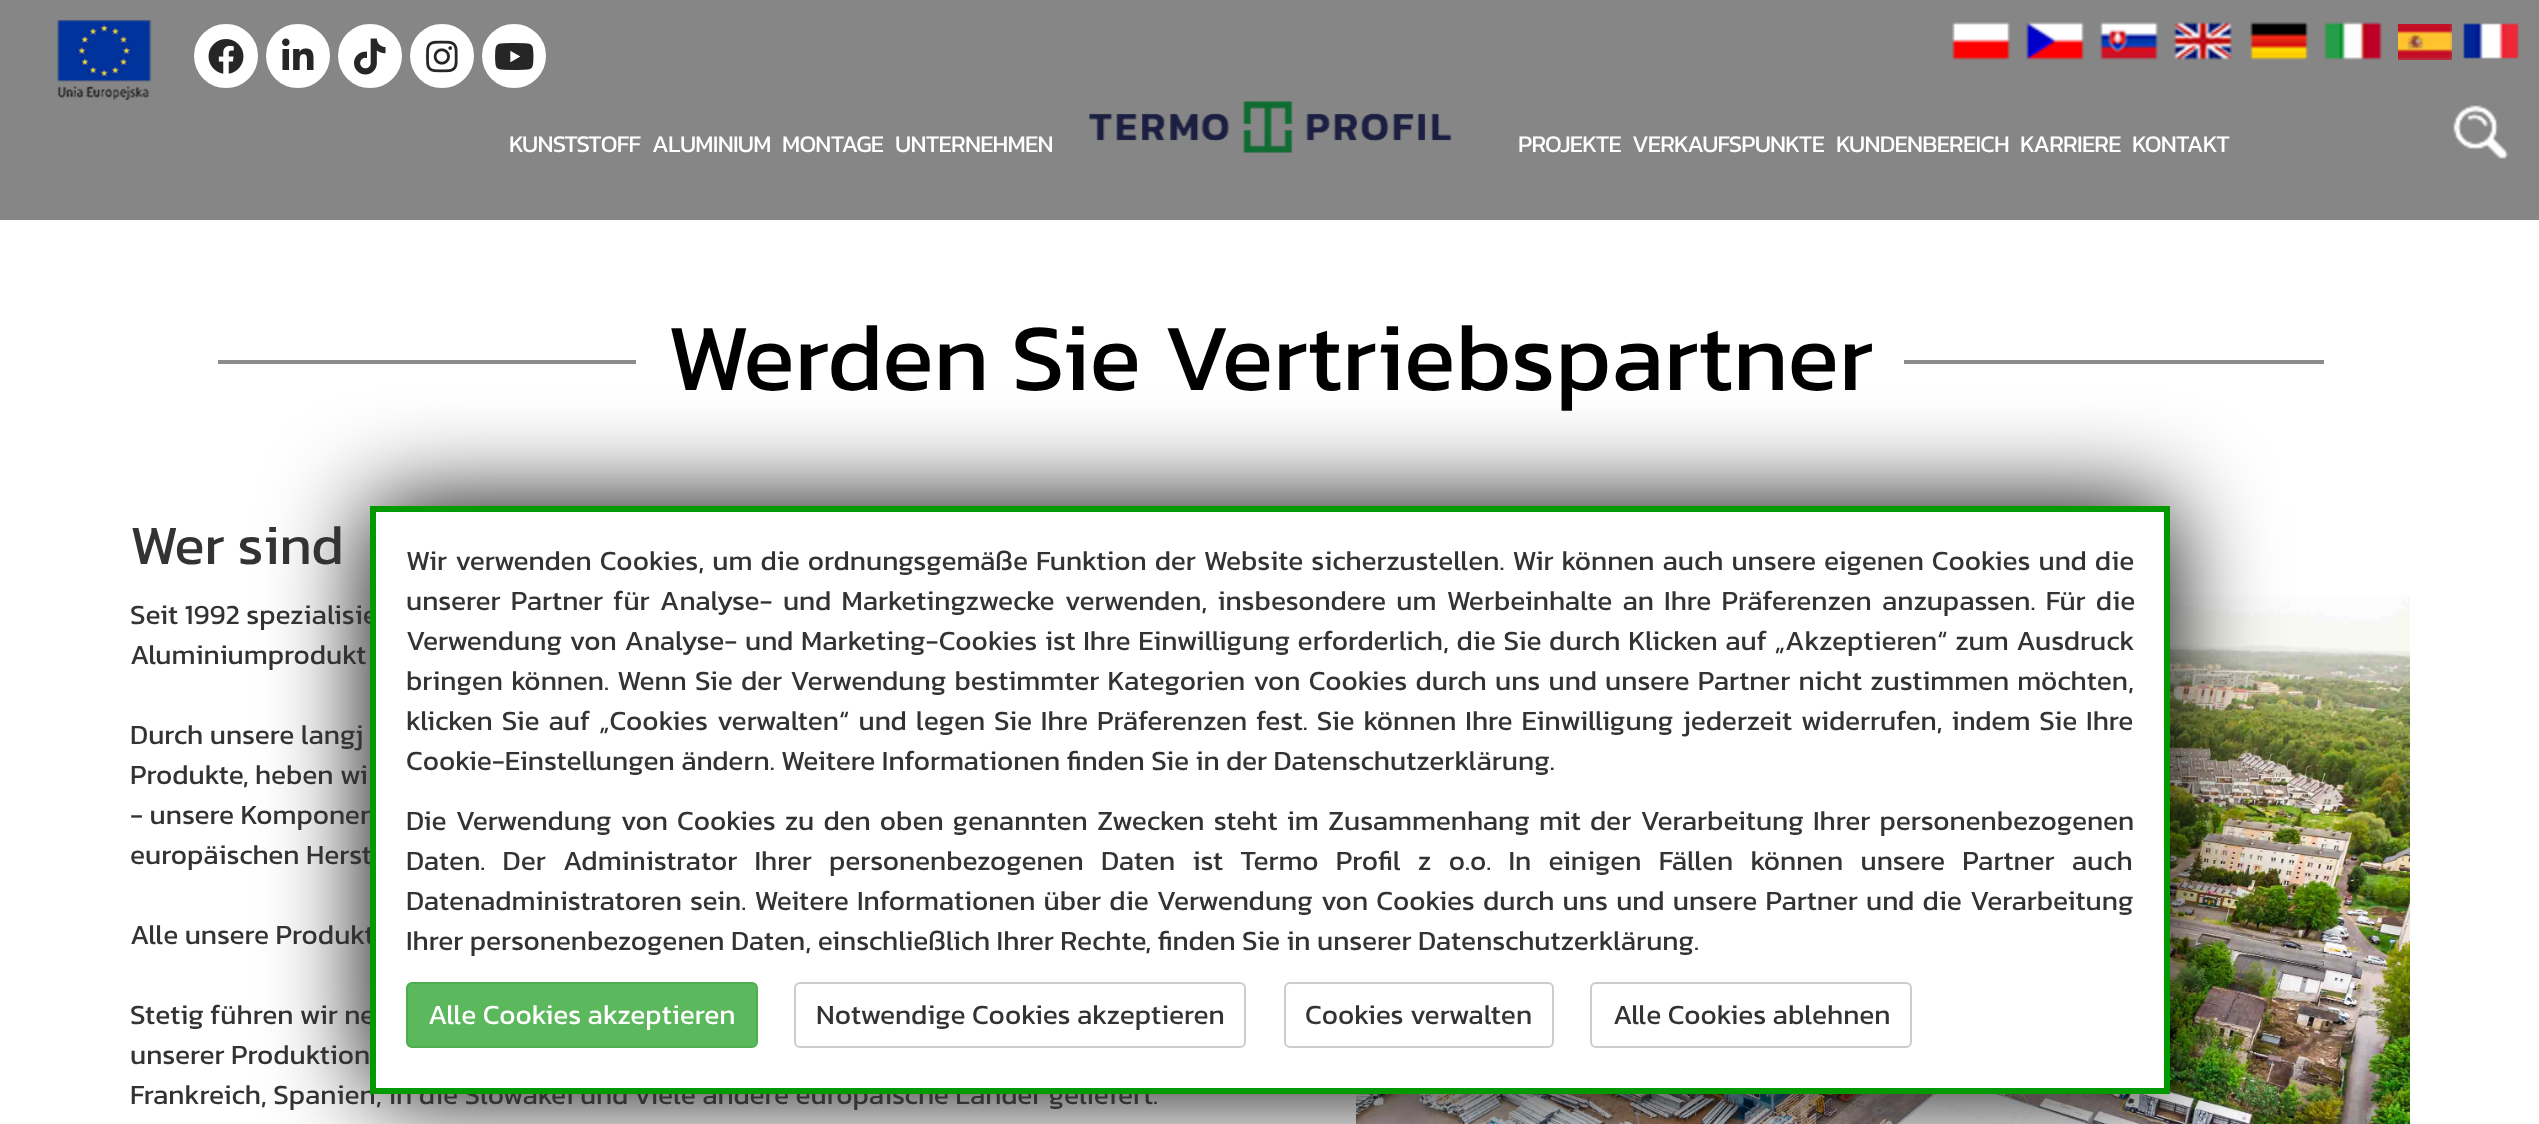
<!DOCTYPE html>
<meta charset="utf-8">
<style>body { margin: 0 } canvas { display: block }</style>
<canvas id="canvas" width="2539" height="1124"></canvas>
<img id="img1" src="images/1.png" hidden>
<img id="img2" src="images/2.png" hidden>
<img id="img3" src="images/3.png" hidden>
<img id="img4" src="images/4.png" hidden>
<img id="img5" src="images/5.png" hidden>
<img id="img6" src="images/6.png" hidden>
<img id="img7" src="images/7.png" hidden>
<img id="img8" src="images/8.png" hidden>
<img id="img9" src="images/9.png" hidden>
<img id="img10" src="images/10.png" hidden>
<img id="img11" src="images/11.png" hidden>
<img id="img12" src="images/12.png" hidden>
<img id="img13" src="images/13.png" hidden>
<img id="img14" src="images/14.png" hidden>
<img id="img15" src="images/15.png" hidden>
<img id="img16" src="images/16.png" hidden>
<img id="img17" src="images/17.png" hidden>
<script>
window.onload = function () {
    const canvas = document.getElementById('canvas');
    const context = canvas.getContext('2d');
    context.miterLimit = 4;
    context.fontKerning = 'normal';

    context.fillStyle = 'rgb(255, 255, 255)';
    context.fillRect(0, 0, 2539, 1124);
    context.fillStyle = 'rgb(134, 134, 134)';
    context.fillRect(0, 0, 2539, 220);
    context.drawImage(document.getElementById('img1'), 57, 20, 95, 80);
    context.fillStyle = 'rgb(255, 255, 255)';
    context.beginPath();
    context.arc(226, 56, 30, 0, 2 * Math.PI);
    context.fill();
    context.strokeStyle = 'rgb(255, 255, 255)';
    context.lineWidth = 4;
    context.stroke();
    context.drawImage(document.getElementById('img2'), 208, 39, 36, 35);
    context.beginPath();
    context.arc(298, 56, 30, 0, 2 * Math.PI);
    context.fill();
    context.stroke();
    context.drawImage(document.getElementById('img3'), 282, 38, 32, 32);
    context.beginPath();
    context.arc(370, 56, 30, 0, 2 * Math.PI);
    context.fill();
    context.stroke();
    context.drawImage(document.getElementById('img4'), 354, 38, 32, 37);
    context.beginPath();
    context.arc(442, 56, 30, 0, 2 * Math.PI);
    context.fill();
    context.stroke();
    context.drawImage(document.getElementById('img5'), 426, 40, 32, 33);
    context.beginPath();
    context.arc(514, 56, 30, 0, 2 * Math.PI);
    context.fill();
    context.stroke();
    context.drawImage(document.getElementById('img6'), 495, 43, 39, 27);
    context.drawImage(document.getElementById('img7'), 1952, 22, 58, 38);
    context.drawImage(document.getElementById('img8'), 2026, 22, 58, 38);
    context.drawImage(document.getElementById('img9'), 2100, 22, 58, 38);
    context.drawImage(document.getElementById('img10'), 2174, 22, 58, 38);
    context.drawImage(document.getElementById('img11'), 2250, 22, 58, 38);
    context.drawImage(document.getElementById('img12'), 2324, 22, 58, 38);
    context.drawImage(document.getElementById('img13'), 2398, 24, 54, 36);
    context.drawImage(document.getElementById('img14'), 2463, 23, 56, 36);
    context.drawImage(document.getElementById('img15'), 1089, 101, 363, 52);
    context.drawImage(document.getElementById('img16'), 2453, 105, 56, 54);
    context.fillStyle = 'rgb(140, 140, 140)';
    context.fillRect(218, 360, 2106, 4);
    context.fillStyle = 'rgb(255, 255, 255)';
    context.fillRect(636, 360, 1268, 4);
    context.drawImage(document.getElementById('img17'), 1356, 596, 1054, 528);
    context.fillStyle = 'rgb(0, 0, 0)';
    context.filter = 'blur(50px)';
    context.beginPath();
    context.rect(370, 506, 1800, 588);
    context.fill();
    context.filter = 'none';
    context.letterSpacing = '-0.75px';
    context.font = '24px Kanit';
    context.fillStyle = 'rgb(255, 255, 255)';
    context.fillText('KUNSTSTOFF', 509, 152);
    context.fillText('ALUMINIUM', 652, 152);
    context.fillText('MONTAGE', 782, 152);
    context.fillText('UNTERNEHMEN', 895, 152);
    context.fillText('PROJEKTE', 1518, 152);
    context.fillText('VERKAUFSPUNKTE', 1632, 152);
    context.fillText('KUNDENBEREICH', 1836, 152);
    context.fillText('KARRIERE', 2020, 152);
    context.fillText('KONTAKT', 2132, 152);
    context.letterSpacing = '0px';
    context.font = '96px Kanit';
    context.fillStyle = 'rgb(0, 0, 0)';
    context.fillText('Werden Sie Vertriebspartner', 667, 390);
    context.font = '56px Kanit';
    context.fillStyle = 'rgb(51, 51, 51)';
    context.fillText('Wer sind', 130, 564);
    context.font = '28px Kanit';
    context.fillText('Seit 1992 spezialisie', 130, 624);
    context.fillText('Aluminiumprodukt', 130, 664);
    context.fillText('Durch unsere langj', 130, 744);
    context.fillText('Produkte, heben wi', 130, 784);
    context.fillText('- unsere Komponen', 130, 824);
    context.fillText('europäischen Herst', 130, 864);
    context.fillText('Alle unsere Produkt', 130, 944);
    context.fillText('Stetig führen wir ne', 130, 1024);
    context.fillText('unserer Produktion', 130, 1064);
    context.fillText('Frankreich, Spanien, in die Slowakei und viele andere europäische Länder geliefert.', 130, 1104);
    context.fillStyle = 'rgb(255, 255, 255)';
    context.beginPath();
    context.rect(373, 509, 1794, 582);
    context.fill();
    context.strokeStyle = 'rgb(0, 153, 0)';
    context.lineWidth = 6;
    context.stroke();
    context.wordSpacing = '1.6px';
    context.fillStyle = 'rgb(51, 51, 51)';
    context.fillText('Wir verwenden Cookies, um die ordnungsgemäße Funktion der Website sicherzustellen. Wir können auch unsere eigenen Cookies und die', 406, 570);
    context.wordSpacing = '3.75px';
    context.fillText('unserer Partner für Analyse- und Marketingzwecke verwenden, insbesondere um Werbeinhalte an Ihre Präferenzen anzupassen. Für die', 406, 610);
    context.wordSpacing = '1.25px';
    context.fillText('Verwendung von Analyse- und Marketing-Cookies ist Ihre Einwilligung erforderlich, die Sie durch Klicken auf „Akzeptieren“ zum Ausdruck', 406, 650);
    context.wordSpacing = '1.75px';
    context.fillText('bringen können. Wenn Sie der Verwendung bestimmter Kategorien von Cookies durch uns und unsere Partner nicht zustimmen möchten,', 406, 690);
    context.wordSpacing = '2.5px';
    context.fillText('klicken Sie auf „Cookies verwalten“ und legen Sie Ihre Präferenzen fest. Sie können Ihre Einwilligung jederzeit widerrufen, indem Sie Ihre', 406, 730);
    context.wordSpacing = '0px';
    context.fillText('Cookie-Einstellungen ändern. Weitere Informationen finden Sie in der Datenschutzerklärung.', 406, 770);
    context.wordSpacing = '2.75px';
    context.fillText('Die Verwendung von Cookies zu den oben genannten Zwecken steht im Zusammenhang mit der Verarbeitung Ihrer personenbezogenen', 406, 830);
    context.wordSpacing = '10.75px';
    context.fillText('Daten. Der Administrator Ihrer personenbezogenen Daten ist Termo Profil z o.o. In einigen Fällen können unsere Partner auch', 406, 870);
    context.wordSpacing = '1.75px';
    context.fillText('Datenadministratoren sein. Weitere Informationen über die Verwendung von Cookies durch uns und unsere Partner und die Verarbeitung', 406, 910);
    context.wordSpacing = '0px';
    context.fillText('Ihrer personenbezogenen Daten, einschließlich Ihrer Rechte, finden Sie in unserer Datenschutzerklärung.', 406, 950);
    context.fillStyle = 'rgb(92, 184, 92)';
    context.beginPath();
    context.roundRect(407, 983, 350, 64, 5);
    context.fill();
    context.strokeStyle = 'rgb(76, 174, 76)';
    context.lineWidth = 2;
    context.stroke();
    context.fillStyle = 'rgb(255, 255, 255)';
    context.fillText('Alle Cookies akzeptieren', 428, 1024);
    context.beginPath();
    context.roundRect(795, 983, 450, 64, 5);
    context.strokeStyle = 'rgb(204, 204, 204)';
    context.stroke();
    context.fillStyle = 'rgb(51, 51, 51)';
    context.fillText('Notwendige Cookies akzeptieren', 816, 1024);
    context.beginPath();
    context.roundRect(1285, 983, 268, 64, 5);
    context.stroke();
    context.fillText('Cookies verwalten', 1305, 1024);
    context.beginPath();
    context.roundRect(1591, 983, 320, 64, 5);
    context.stroke();
    context.fillText('Alle Cookies ablehnen', 1613, 1024);
};
</script>
